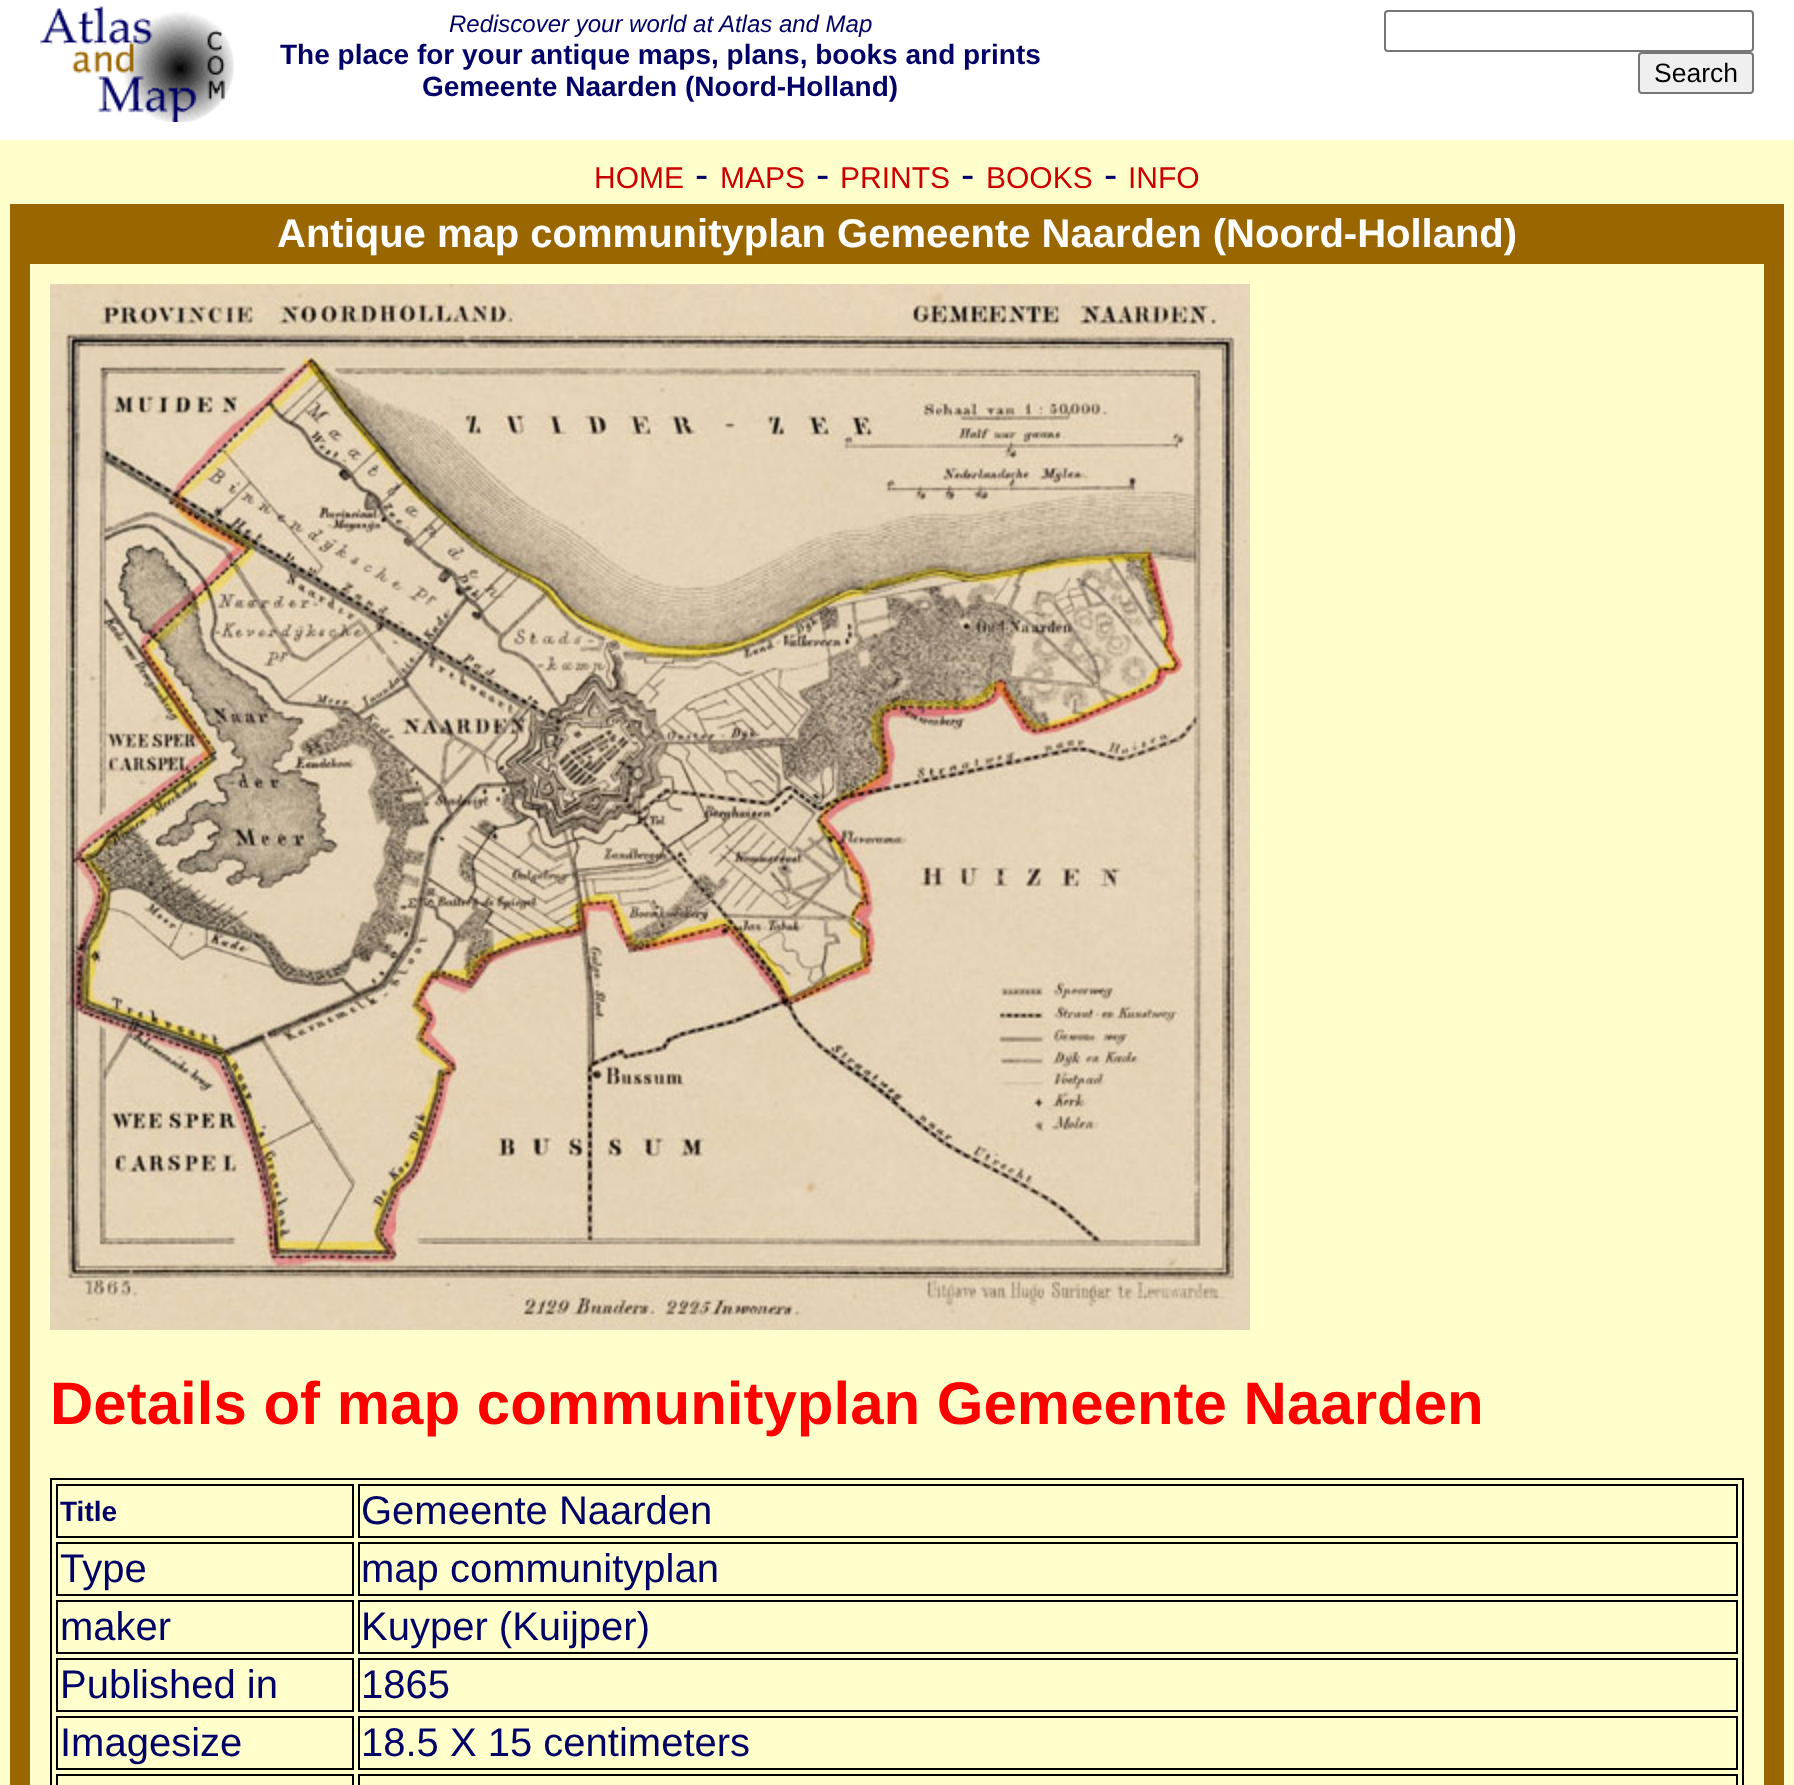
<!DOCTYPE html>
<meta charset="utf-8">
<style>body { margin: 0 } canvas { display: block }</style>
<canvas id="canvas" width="1794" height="1785"></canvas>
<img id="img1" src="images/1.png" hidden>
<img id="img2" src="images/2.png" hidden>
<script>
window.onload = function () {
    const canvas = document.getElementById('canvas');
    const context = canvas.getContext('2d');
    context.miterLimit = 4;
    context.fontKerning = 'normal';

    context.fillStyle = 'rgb(255, 255, 255)';
    context.fillRect(0, 0, 1794, 1785);
    context.drawImage(document.getElementById('img1'), 40, 6, 194, 116);
    context.beginPath();
    context.roundRect(1385, 11, 368, 40, 3);
    context.strokeStyle = 'rgb(118, 118, 118)';
    context.lineWidth = 2;
    context.stroke();
    context.fillStyle = 'rgb(239, 239, 239)';
    context.beginPath();
    context.roundRect(1639, 53, 114, 40, 3);
    context.fill();
    context.stroke();
    context.fillStyle = 'rgb(255, 255, 204)';
    context.fillRect(0, 140, 1794, 1645);
    context.fillStyle = 'rgb(153, 102, 0)';
    context.fillRect(10, 204, 1774, 60);
    context.fillRect(10, 264, 20, 1521);
    context.drawImage(document.getElementById('img2'), 50, 284, 1200, 1046);
    context.strokeStyle = 'rgb(0, 0, 0)';
    context.strokeRect(51, 1479, 1692, 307);
    context.strokeRect(57, 1485, 296, 52);
    context.strokeRect(359, 1485, 1378, 52);
    context.strokeRect(57, 1543, 296, 52);
    context.strokeRect(359, 1543, 1378, 52);
    context.strokeRect(57, 1601, 296, 52);
    context.strokeRect(359, 1601, 1378, 52);
    context.strokeRect(57, 1659, 296, 52);
    context.strokeRect(359, 1659, 1378, 52);
    context.strokeRect(57, 1717, 296, 52);
    context.strokeRect(359, 1717, 1378, 52);
    context.strokeRect(57, 1775, 296, 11);
    context.strokeRect(359, 1775, 1378, 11);
    context.fillRect(1764, 264, 20, 1521);
    context.font = 'italic 24px Liberation Sans';
    context.fillStyle = 'rgb(0, 0, 102)';
    context.fillText('Rediscover your world at Atlas and Map', 449, 32);
    context.font = 'bold 28px Liberation Sans';
    context.fillText('The place for your antique maps, plans, books and prints', 280, 64);
    context.fillText('Gemeente Naarden (Noord-Holland)', 422, 96);
    context.font = '26.5px Liberation Sans';
    context.fillStyle = 'rgb(0, 0, 0)';
    context.fillText('Search', 1654, 82);
    context.font = '30px Liberation Sans';
    context.fillStyle = 'rgb(204, 0, 0)';
    context.fillText('HOME', 594, 188);
    context.font = '40px Liberation Sans';
    context.fillStyle = 'rgb(0, 0, 102)';
    context.fillText('-', 695, 188);
    context.font = '30px Liberation Sans';
    context.fillStyle = 'rgb(204, 0, 0)';
    context.fillText('MAPS', 720, 188);
    context.font = '40px Liberation Sans';
    context.fillStyle = 'rgb(0, 0, 102)';
    context.fillText('-', 816, 188);
    context.font = '30px Liberation Sans';
    context.fillStyle = 'rgb(204, 0, 0)';
    context.fillText('PRINTS', 840, 188);
    context.font = '40px Liberation Sans';
    context.fillStyle = 'rgb(0, 0, 102)';
    context.fillText('-', 961, 188);
    context.font = '30px Liberation Sans';
    context.fillStyle = 'rgb(204, 0, 0)';
    context.fillText('BOOKS', 986, 188);
    context.font = '40px Liberation Sans';
    context.fillStyle = 'rgb(0, 0, 102)';
    context.fillText('-', 1104, 188);
    context.font = '30px Liberation Sans';
    context.fillStyle = 'rgb(204, 0, 0)';
    context.fillText('INFO', 1128, 188);
    context.font = 'bold 40px Liberation Sans';
    context.fillStyle = 'rgb(255, 255, 255)';
    context.fillText('Antique map communityplan Gemeente Naarden (Noord-Holland)', 277, 247);
    context.font = 'bold 60px Liberation Sans';
    context.fillStyle = 'rgb(255, 0, 0)';
    context.fillText('Details of map communityplan Gemeente Naarden', 50, 1424);
    context.font = 'bold 28px Liberation Sans';
    context.fillStyle = 'rgb(0, 0, 102)';
    context.fillText('Title', 60, 1521);
    context.font = '40px Liberation Sans';
    context.fillText('Gemeente Naarden', 361, 1524);
    context.fillText('Type', 60, 1582);
    context.fillText('map communityplan', 361, 1582);
    context.fillText('maker', 60, 1640);
    context.fillText('Kuyper (Kuijper)', 361, 1640);
    context.fillText('Published in', 60, 1698);
    context.fillText('1865', 361, 1698);
    context.fillText('Imagesize', 60, 1756);
    context.fillText('18.5 X 15 centimeters', 361, 1756);
};
</script>
